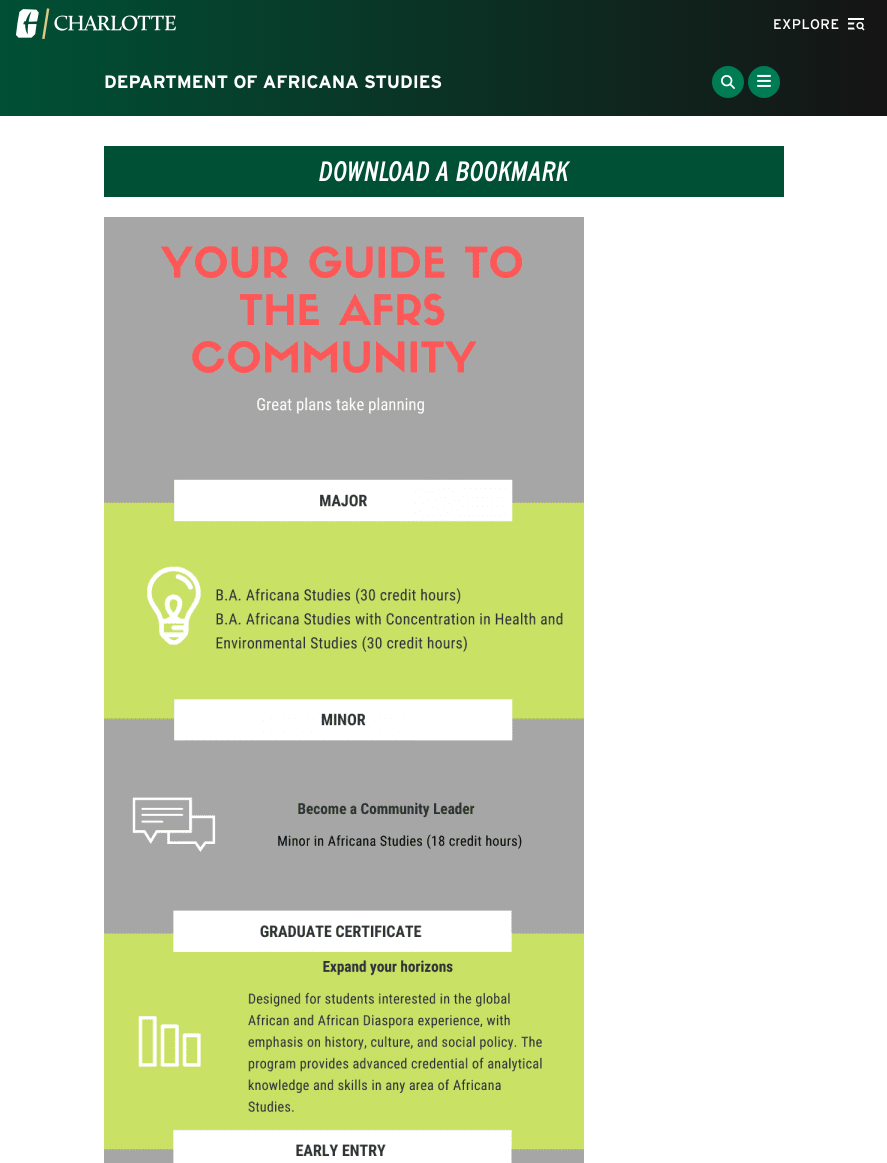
<!DOCTYPE html>
<meta charset="utf-8">
<style>body { margin: 0 } canvas { display: block }</style>
<canvas id="canvas" width="887" height="1163"></canvas>
<img id="img1" src="images/1.png" hidden>
<img id="img2" src="images/2.png" hidden>
<img id="img3" src="images/3.png" hidden>
<img id="img4" src="images/4.png" hidden>
<img id="img5" src="images/5.png" hidden>
<script>
window.onload = function () {
    const canvas = document.getElementById('canvas');
    const context = canvas.getContext('2d');
    context.miterLimit = 4;
    context.fontKerning = 'normal';
    let gradient;

    context.fillStyle = 'rgb(255, 255, 255)';
    context.fillRect(0, 0, 887, 1163);
    gradient = context.createLinearGradient(0, 58, 887, 58);
    gradient.addColorStop(0, 'rgb(0, 80, 53)');
    gradient.addColorStop(1, 'rgb(21, 20, 20)');
    context.fillStyle = gradient;
    context.fillRect(0, 0, 887, 116);
    context.drawImage(document.getElementById('img1'), 16, 8, 160, 32);
    context.drawImage(document.getElementById('img2'), 848, 18, 17, 13);
    context.fillStyle = 'rgb(0, 124, 84)';
    context.beginPath();
    context.arc(728, 82, 16, 0, 2 * Math.PI);
    context.fill();
    context.drawImage(document.getElementById('img3'), 721, 75, 14, 14);
    context.beginPath();
    context.arc(764, 82, 16, 0, 2 * Math.PI);
    context.fill();
    context.drawImage(document.getElementById('img4'), 757, 74, 14, 13);
    context.fillStyle = 'rgb(0, 80, 53)';
    context.fillRect(104, 146, 680, 51);
    context.drawImage(document.getElementById('img5'), 104, 217, 480, 946);
    context.letterSpacing = '0.5px';
    context.font = '14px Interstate';
    context.fillStyle = 'rgb(255, 255, 255)';
    context.fillText('EXPLORE', 773, 29);
    context.letterSpacing = '0px';
    context.font = 'bold 18px Interstate';
    context.fillText('DEPARTMENT OF AFRICANA STUDIES', 104, 88);
    context.font = 'italic 28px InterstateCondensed';
    context.fillText('DOWNLOAD A BOOKMARK', 319, 181);
};
</script>
